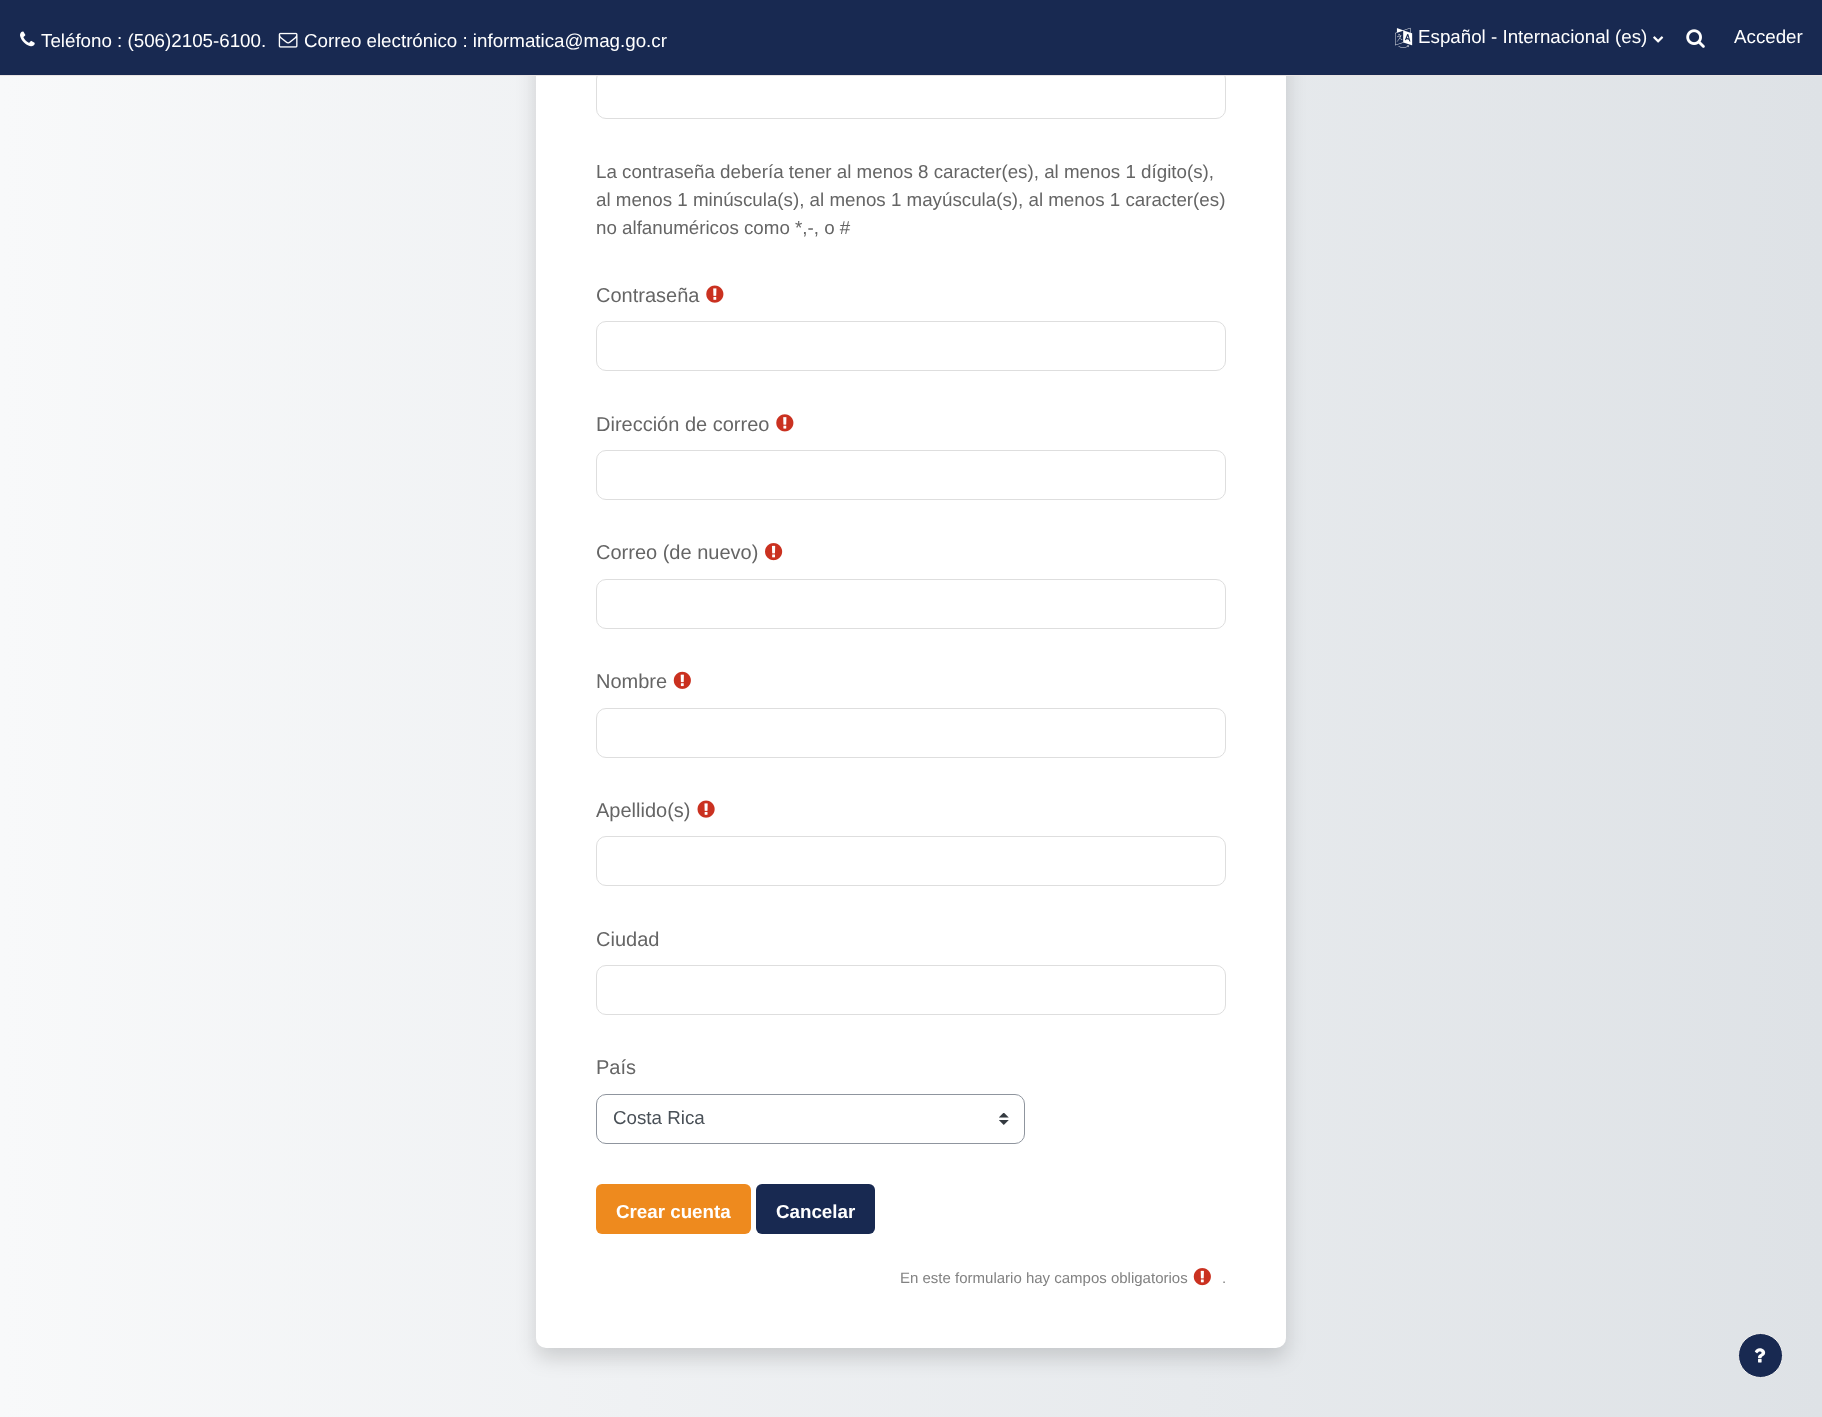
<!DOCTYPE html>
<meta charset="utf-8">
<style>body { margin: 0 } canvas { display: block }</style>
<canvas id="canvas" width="1822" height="1417"></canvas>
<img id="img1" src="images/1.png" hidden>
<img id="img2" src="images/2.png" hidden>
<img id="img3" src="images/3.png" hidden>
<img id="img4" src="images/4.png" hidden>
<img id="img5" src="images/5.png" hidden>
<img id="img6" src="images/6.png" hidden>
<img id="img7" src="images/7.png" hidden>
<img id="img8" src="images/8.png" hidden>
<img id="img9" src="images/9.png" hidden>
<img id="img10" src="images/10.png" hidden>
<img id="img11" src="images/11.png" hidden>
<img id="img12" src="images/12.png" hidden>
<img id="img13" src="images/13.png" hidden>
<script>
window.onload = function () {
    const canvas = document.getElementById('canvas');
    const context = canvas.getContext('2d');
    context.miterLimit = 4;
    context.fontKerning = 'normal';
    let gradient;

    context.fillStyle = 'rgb(255, 255, 255)';
    context.fillRect(0, 0, 1822, 1417);
    gradient = context.createLinearGradient(0, 646, 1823, 646);
    gradient.addColorStop(0, 'rgb(248, 249, 250)');
    gradient.addColorStop(1, 'rgb(222, 226, 230)');
    context.fillStyle = gradient;
    context.fillRect(0, 76, 1822, 1341);
    context.fillStyle = 'rgba(0, 0, 0, 0.15)';
    context.filter = 'blur(10px)';
    context.beginPath();
    context.roundRect(536, -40, 750, 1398, 10);
    context.fill();
    context.filter = 'none';
    context.fillStyle = 'rgb(255, 255, 255)';
    context.beginPath();
    context.roundRect(536, -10, 750, 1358, 10);
    context.fill();
    context.beginPath();
    context.roundRect(596.5, 69.5, 629, 49, 9.5);
    context.strokeStyle = 'rgb(222, 222, 222)';
    context.stroke();
    context.fillStyle = 'rgb(24, 41, 81)';
    context.fillRect(0, 0, 1822, 75);
    context.fillStyle = 'rgb(232, 227, 227)';
    context.fillRect(0, 75, 1822, 1);
    context.drawImage(document.getElementById('img1'), 20, 31, 15, 16);
    context.drawImage(document.getElementById('img2'), 278, 32, 20, 16);
    context.drawImage(document.getElementById('img3'), 1395, 27, 18, 21);
    context.drawImage(document.getElementById('img4'), 1653, 36, 11, 7);
    context.drawImage(document.getElementById('img5'), 1686, 29, 19, 19);
    context.drawImage(document.getElementById('img6'), 706, 285, 18, 18);
    context.beginPath();
    context.roundRect(596.5, 321.5, 629, 49, 9.5);
    context.stroke();
    context.drawImage(document.getElementById('img7'), 776, 414, 18, 18);
    context.beginPath();
    context.roundRect(596.5, 450.5, 629, 49, 9.5);
    context.stroke();
    context.drawImage(document.getElementById('img8'), 765, 543, 18, 18);
    context.beginPath();
    context.roundRect(596.5, 579.5, 629, 49, 9.5);
    context.stroke();
    context.drawImage(document.getElementById('img9'), 673, 671, 18, 18);
    context.beginPath();
    context.roundRect(596.5, 708.5, 629, 49, 9.5);
    context.stroke();
    context.drawImage(document.getElementById('img10'), 697, 800, 18, 18);
    context.beginPath();
    context.roundRect(596.5, 836.5, 629, 49, 9.5);
    context.stroke();
    context.beginPath();
    context.roundRect(596.5, 965.5, 629, 49, 9.5);
    context.stroke();
    context.drawImage(document.getElementById('img11'), 999, 1113, 10, 12);
    context.beginPath();
    context.roundRect(596.5, 1094.5, 428, 49, 9.5);
    context.strokeStyle = 'rgb(143, 149, 158)';
    context.stroke();
    context.fillStyle = 'rgb(238, 138, 30)';
    context.beginPath();
    context.roundRect(596, 1184, 155, 50, 6);
    context.fill();
    context.fillStyle = 'rgb(24, 41, 81)';
    context.beginPath();
    context.roundRect(756, 1184, 119, 50, 6);
    context.fill();
    context.drawImage(document.getElementById('img12'), 1193, 1268, 18, 18);
    context.beginPath();
    context.arc(1760.5, 1355.5, 22, 0, 2 * Math.PI);
    context.fill();
    context.strokeStyle = 'rgb(238, 238, 238)';
    context.stroke();
    context.drawImage(document.getElementById('img13'), 1754, 1348, 12, 15);
    context.font = '18.75px Liberation Sans';
    context.fillStyle = 'rgb(255, 255, 255)';
    context.fillText('Teléfono : (506)2105-6100.', 41, 47);
    context.fillText('Correo electrónico : informatica@mag.go.cr', 304, 47);
    context.fillText('Español - Internacional (es)', 1418, 43);
    context.fillText('Acceder', 1734, 43);
    context.fillStyle = 'rgb(101, 101, 101)';
    context.fillText('La contraseña debería tener al menos 8 caracter(es), al menos 1 dígito(s),', 596, 178);
    context.fillText('al menos 1 minúscula(s), al menos 1 mayúscula(s), al menos 1 caracter(es)', 596, 206);
    context.fillText('no alfanuméricos como *,-, o #', 596, 234);
    context.font = '20px Liberation Sans';
    context.fillText('Contraseña', 596, 302);
    context.fillText('Dirección de correo', 596, 431);
    context.fillText('Correo (de nuevo)', 596, 559);
    context.fillText('Nombre', 596, 688);
    context.fillText('Apellido(s)', 596, 817);
    context.fillText('Ciudad', 596, 946);
    context.fillText('País', 596, 1074);
    context.font = '18.75px Liberation Sans';
    context.fillStyle = 'rgb(73, 80, 87)';
    context.fillText('Costa Rica', 613, 1124);
    context.font = 'bold 18.75px Liberation Sans';
    context.fillStyle = 'rgb(255, 255, 255)';
    context.fillText('Crear cuenta', 616, 1218);
    context.fillText('Cancelar', 776, 1218);
    context.font = '15px Liberation Sans';
    context.fillStyle = 'rgb(130, 130, 130)';
    context.fillText('En este formulario hay campos obligatorios', 900, 1283);
    context.fillText('.', 1222, 1283);
};
</script>
